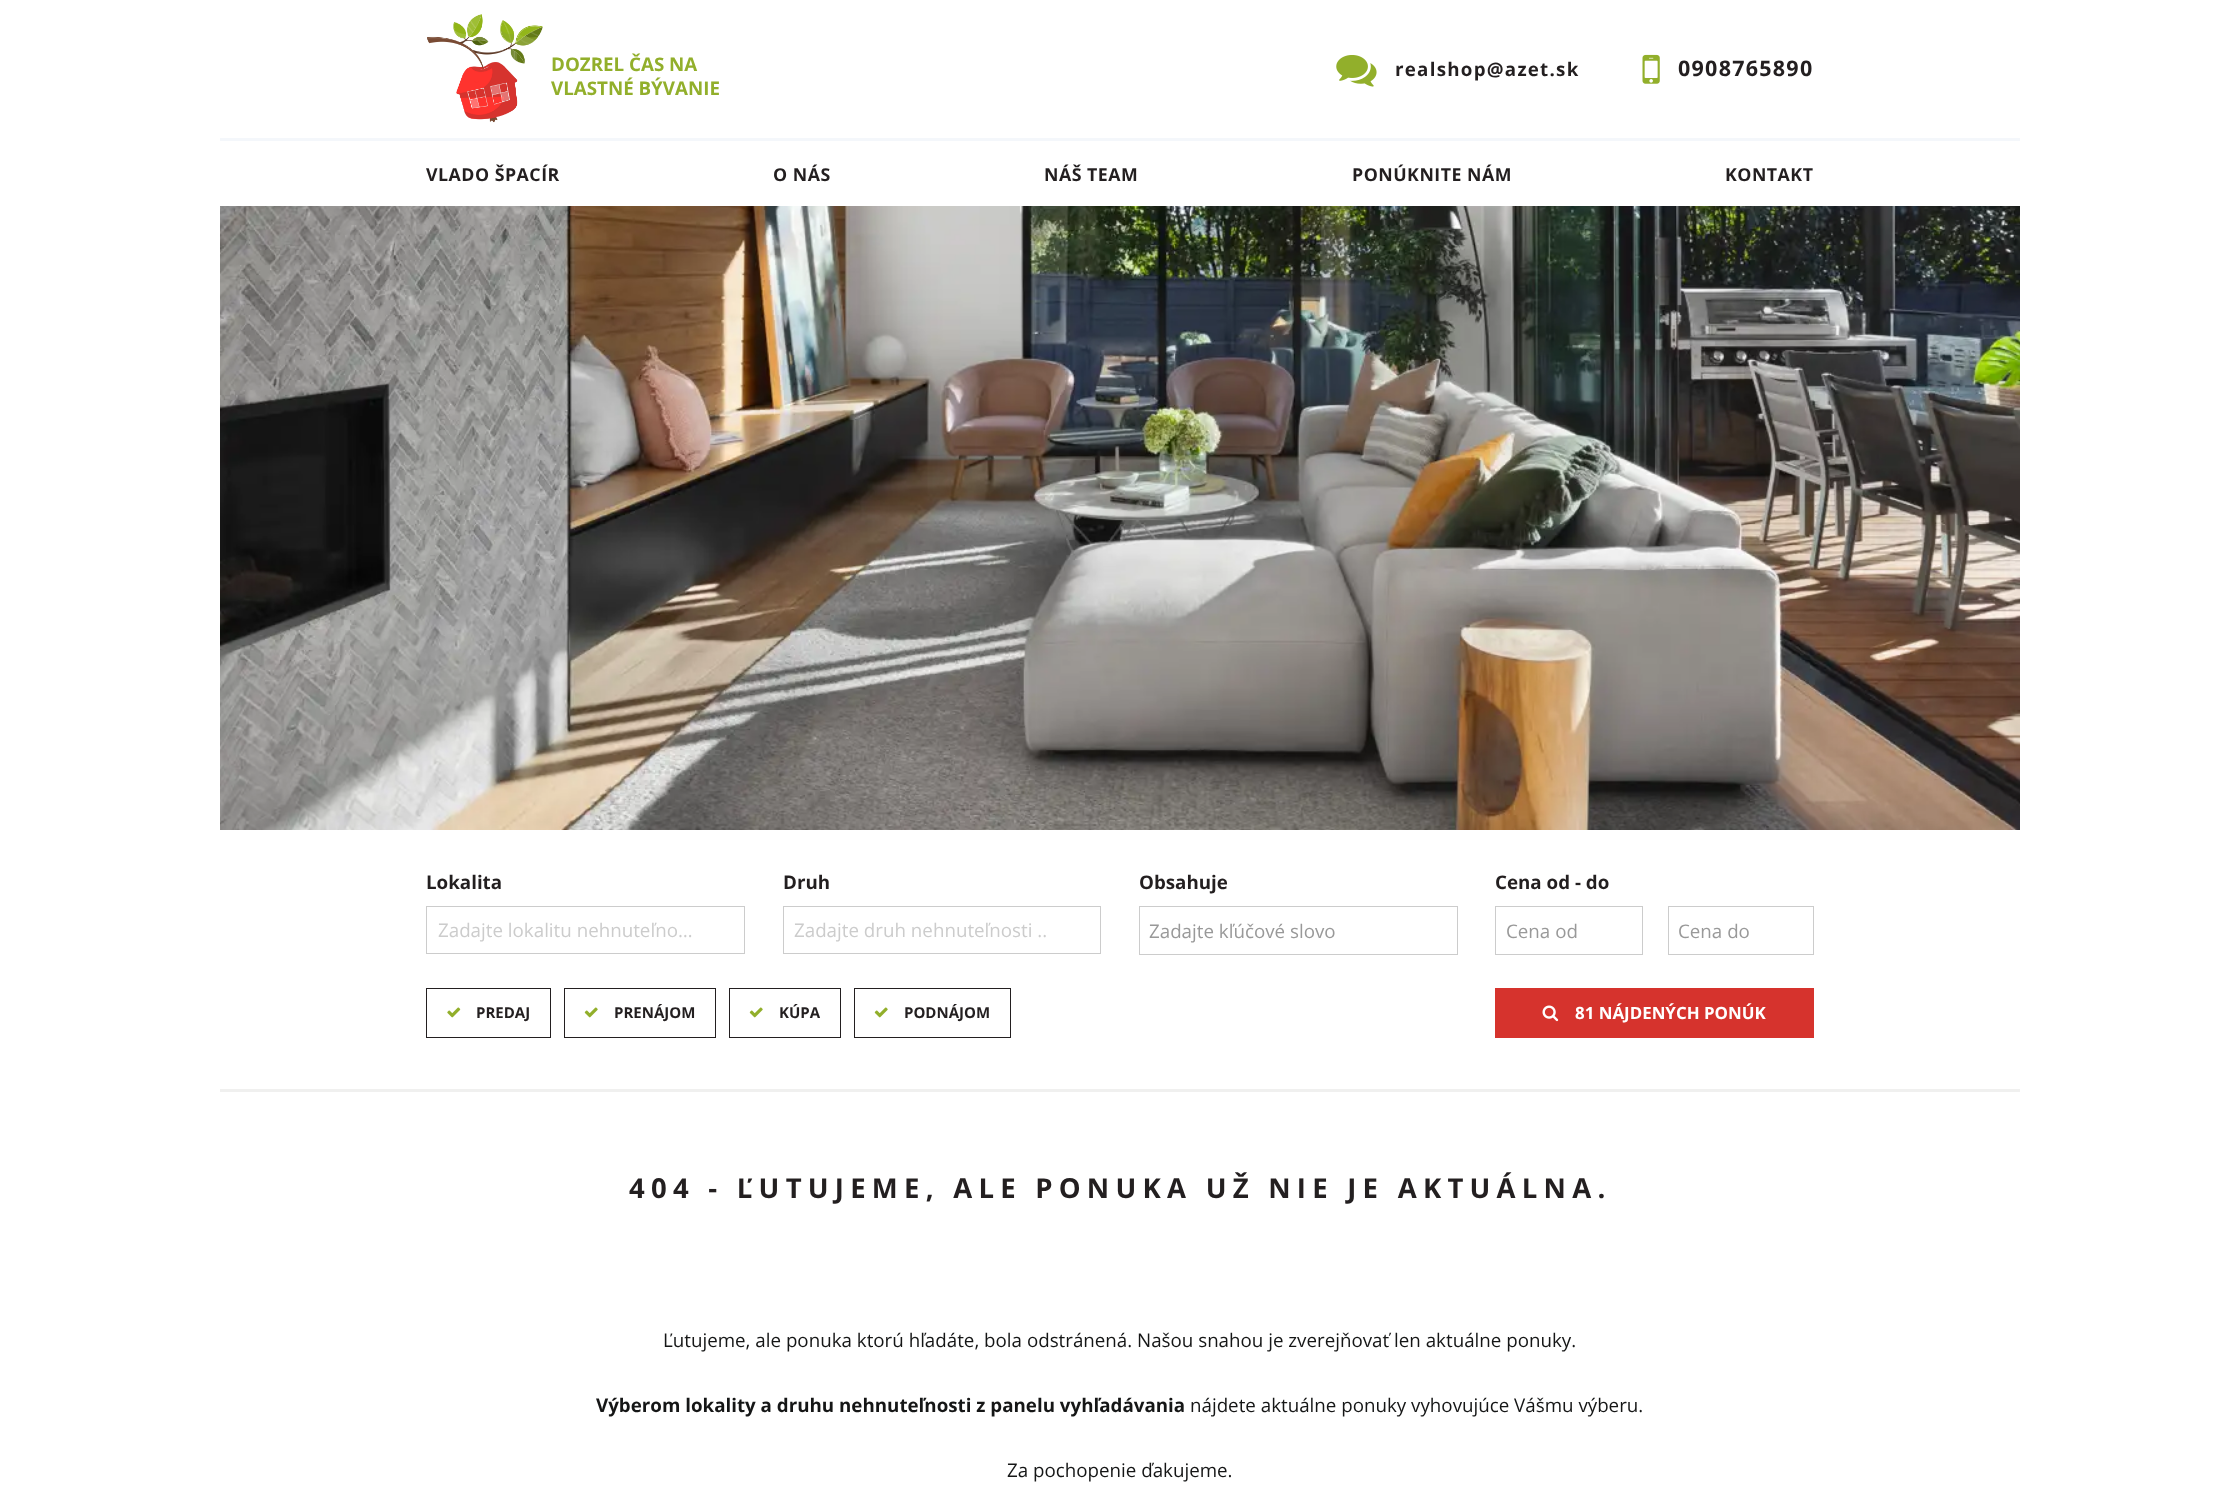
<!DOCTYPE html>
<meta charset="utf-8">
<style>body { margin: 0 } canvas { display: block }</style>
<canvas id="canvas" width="2239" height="1511"></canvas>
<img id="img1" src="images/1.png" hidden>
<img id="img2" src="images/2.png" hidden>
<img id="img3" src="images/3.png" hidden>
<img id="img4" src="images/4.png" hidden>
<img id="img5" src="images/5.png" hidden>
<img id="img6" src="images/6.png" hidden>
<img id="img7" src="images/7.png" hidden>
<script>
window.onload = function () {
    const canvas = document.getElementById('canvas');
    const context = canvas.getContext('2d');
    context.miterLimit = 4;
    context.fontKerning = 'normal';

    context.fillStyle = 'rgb(255, 255, 255)';
    context.fillRect(0, 0, 2239, 1511);
    context.drawImage(document.getElementById('img1'), 427, 14, 116, 109);
    context.drawImage(document.getElementById('img2'), 1336, 55, 41, 32);
    context.drawImage(document.getElementById('img3'), 1642, 54, 18, 30);
    context.fillStyle = 'rgb(244, 247, 251)';
    context.fillRect(220, 138, 1800, 3);
    context.drawImage(document.getElementById('img4'), 220, 206, 1800, 624);
    context.fillStyle = 'rgb(240, 240, 239)';
    context.fillRect(220, 1089, 1800, 3);
    context.strokeStyle = 'rgb(204, 204, 204)';
    context.strokeRect(426.5, 906.5, 318, 47);
    context.strokeRect(783.5, 906.5, 317, 47);
    context.strokeRect(1139.5, 906.5, 318, 48);
    context.strokeRect(1495.5, 906.5, 147, 48);
    context.strokeRect(1668.5, 906.5, 145, 48);
    context.strokeStyle = 'rgb(35, 31, 32)';
    context.strokeRect(426.5, 988.5, 124, 49);
    context.drawImage(document.getElementById('img5'), 447, 1007, 14, 11);
    context.strokeRect(564.5, 988.5, 151, 49);
    context.drawImage(document.getElementById('img6'), 584, 1007, 14, 11);
    context.strokeRect(729.5, 988.5, 111, 49);
    context.drawImage(document.getElementById('img6'), 749, 1007, 14, 11);
    context.strokeRect(854.5, 988.5, 156, 49);
    context.drawImage(document.getElementById('img6'), 874, 1007, 14, 11);
    context.fillStyle = 'rgb(214, 51, 45)';
    context.fillRect(1495, 988, 319, 50);
    context.drawImage(document.getElementById('img7'), 1542, 1005, 17, 17);
    context.font = 'bold 18.75px Open Sans';
    context.fillStyle = 'rgb(146, 175, 43)';
    context.fillText('DOZREL ČAS NA', 551, 71);
    context.fillText('VLASTNÉ BÝVANIE', 551, 95);
    context.letterSpacing = '1.25px';
    context.fillStyle = 'rgb(35, 31, 32)';
    context.fillText('realshop@azet.sk', 1395, 76);
    context.font = 'bold 21.5px Open Sans';
    context.fillText('0908765890', 1678, 76);
    context.letterSpacing = '0.5px';
    context.font = 'bold 17.75px Open Sans';
    context.fillText('VLADO ŠPACÍR', 426, 181);
    context.fillText('O NÁS', 773, 181);
    context.fillText('NÁŠ TEAM', 1044, 181);
    context.fillText('PONÚKNITE NÁM', 1352, 181);
    context.fillText('KONTAKT', 1725, 181);
    context.letterSpacing = '0px';
    context.font = 'bold 18.75px Open Sans';
    context.fillText('Lokalita', 426, 889);
    context.font = '18.75px Open Sans';
    context.fillStyle = 'rgb(204, 204, 204)';
    context.fillText('Zadajte lokalitu nehnuteľno…', 438, 937);
    context.font = 'bold 18.75px Open Sans';
    context.fillStyle = 'rgb(35, 31, 32)';
    context.fillText('Druh', 783, 889);
    context.font = '18.75px Open Sans';
    context.fillStyle = 'rgb(204, 204, 204)';
    context.fillText('Zadajte druh nehnuteľnosti ..', 794, 937);
    context.font = 'bold 18.75px Open Sans';
    context.fillStyle = 'rgb(35, 31, 32)';
    context.fillText('Obsahuje', 1139, 889);
    context.font = '18.75px Open Sans';
    context.fillStyle = 'rgb(153, 153, 153)';
    context.fillText('Zadajte kľúčové slovo', 1149, 938);
    context.font = 'bold 18.75px Open Sans';
    context.fillStyle = 'rgb(35, 31, 32)';
    context.fillText('Cena od - do', 1495, 889);
    context.font = '18.75px Open Sans';
    context.fillStyle = 'rgb(153, 153, 153)';
    context.fillText('Cena od', 1506, 938);
    context.fillText('Cena do', 1678, 938);
    context.font = 'bold 15px Open Sans';
    context.fillStyle = 'rgb(35, 31, 32)';
    context.fillText('PREDAJ', 476, 1018);
    context.fillText('PRENÁJOM', 614, 1018);
    context.fillText('KÚPA', 779, 1018);
    context.fillText('PODNÁJOM', 904, 1018);
    context.font = 'bold 16.9px Open Sans';
    context.fillStyle = 'rgb(255, 255, 255)';
    context.fillText('81 NÁJDENÝCH PONÚK', 1575, 1019);
    context.letterSpacing = '6.25px';
    context.font = 'bold 27.5px Open Sans';
    context.fillStyle = 'rgb(35, 31, 32)';
    context.fillText('404 - ĽUTUJEME, ALE PONUKA UŽ NIE JE AKTUÁLNA.', 629, 1198);
    context.letterSpacing = '0px';
    context.font = '18.75px Open Sans';
    context.fillStyle = 'rgb(21, 22, 22)';
    context.fillText('Ľutujeme, ale ponuka ktorú hľadáte, bola odstránená. Našou snahou je zverejňovať len aktuálne ponuky.', 663, 1347);
    context.font = 'bold 18.75px Open Sans';
    context.fillText('Výberom lokality a druhu nehnuteľnosti z panelu vyhľadávania', 596, 1412);
    context.font = '18.75px Open Sans';
    context.fillText('nájdete aktuálne ponuky vyhovujúce Vášmu výberu.', 1190, 1412);
    context.fillText('Za pochopenie ďakujeme.', 1007, 1477);
};
</script>
